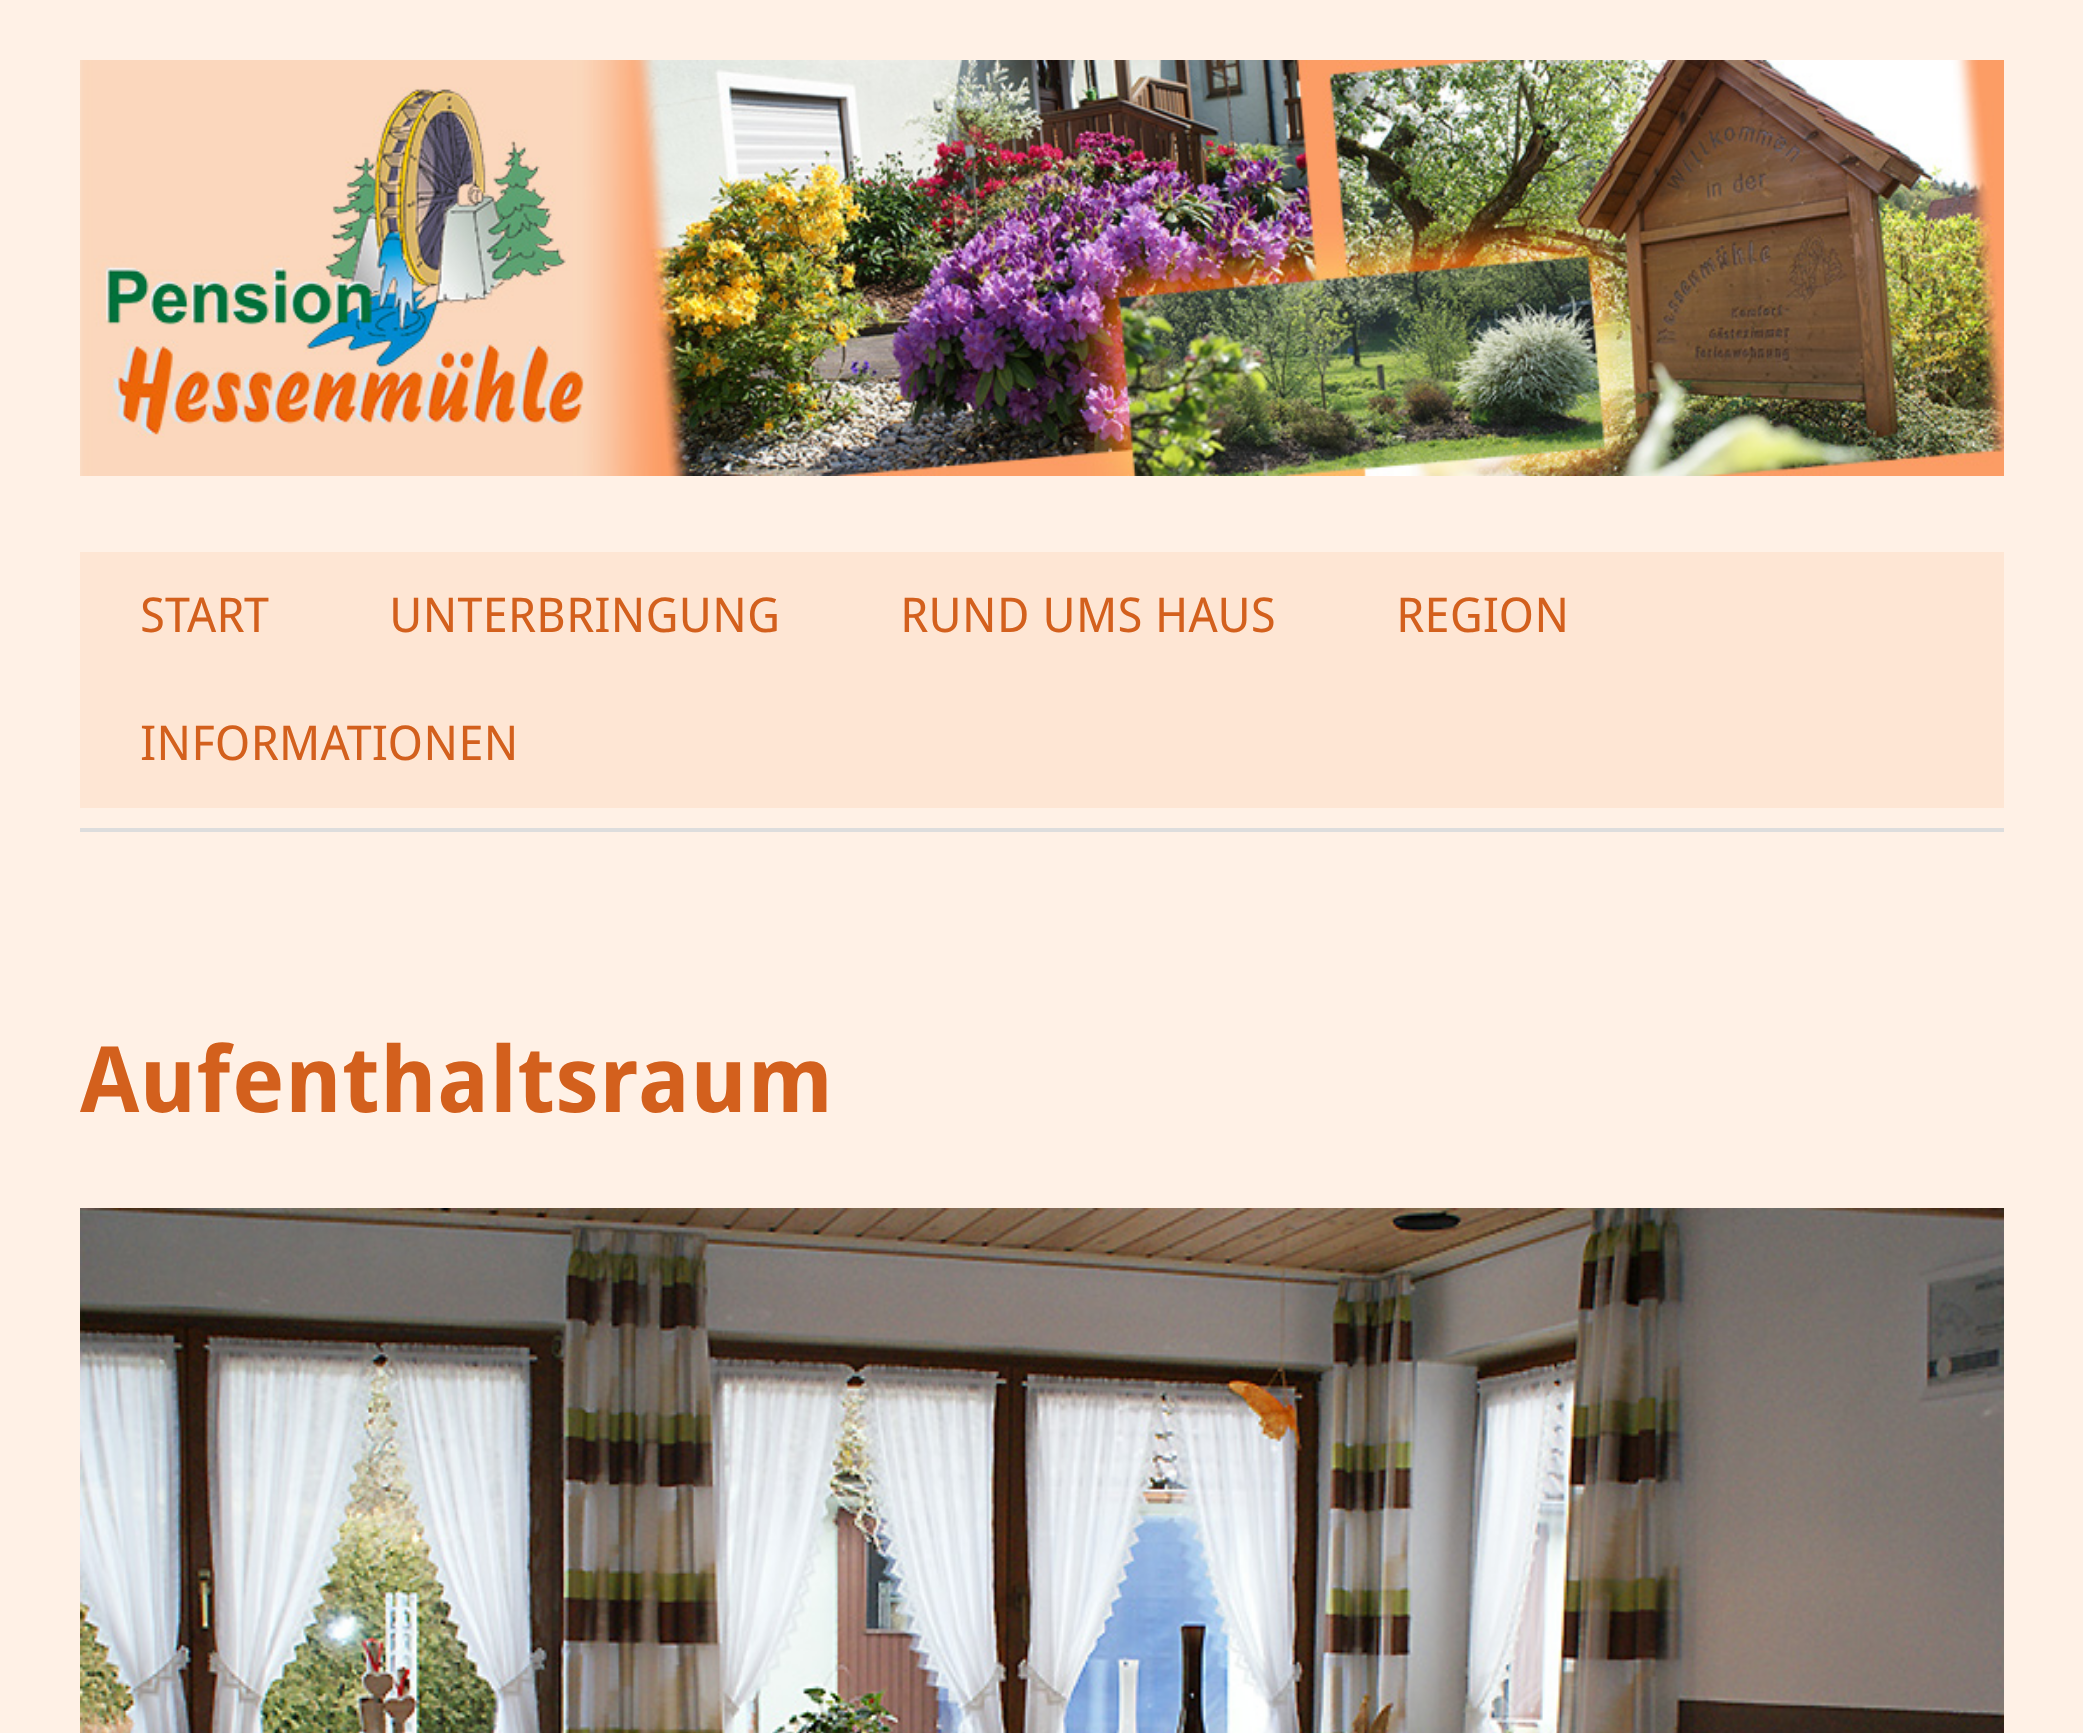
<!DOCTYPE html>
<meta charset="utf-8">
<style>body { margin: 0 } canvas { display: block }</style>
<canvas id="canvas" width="2083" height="1733"></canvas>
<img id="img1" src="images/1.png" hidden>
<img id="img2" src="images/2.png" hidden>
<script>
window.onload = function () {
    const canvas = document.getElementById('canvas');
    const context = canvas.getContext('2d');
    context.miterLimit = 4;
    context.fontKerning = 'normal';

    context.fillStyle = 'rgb(255, 241, 230)';
    context.fillRect(0, 0, 2083, 1733);
    context.drawImage(document.getElementById('img1'), 80, 60, 1924, 416);
    context.fillStyle = 'rgb(254, 230, 212)';
    context.fillRect(80, 552, 1924, 256);
    context.fillStyle = 'rgb(221, 221, 221)';
    context.fillRect(80, 828, 1924, 4);
    context.drawImage(document.getElementById('img2'), 80, 1208, 1924, 525);
    context.font = '48px Droid Sans';
    context.fillStyle = 'rgb(211, 96, 29)';
    context.fillText('START', 140, 632);
    context.fillText('UNTERBRINGUNG', 389, 632);
    context.fillText('RUND UMS HAUS', 900, 632);
    context.fillText('REGION', 1396, 632);
    context.fillText('INFORMATIONEN', 140, 760);
    context.font = 'bold 91.25px Droid Sans';
    context.fillText('Aufenthaltsraum', 80, 1112);
};
</script>
